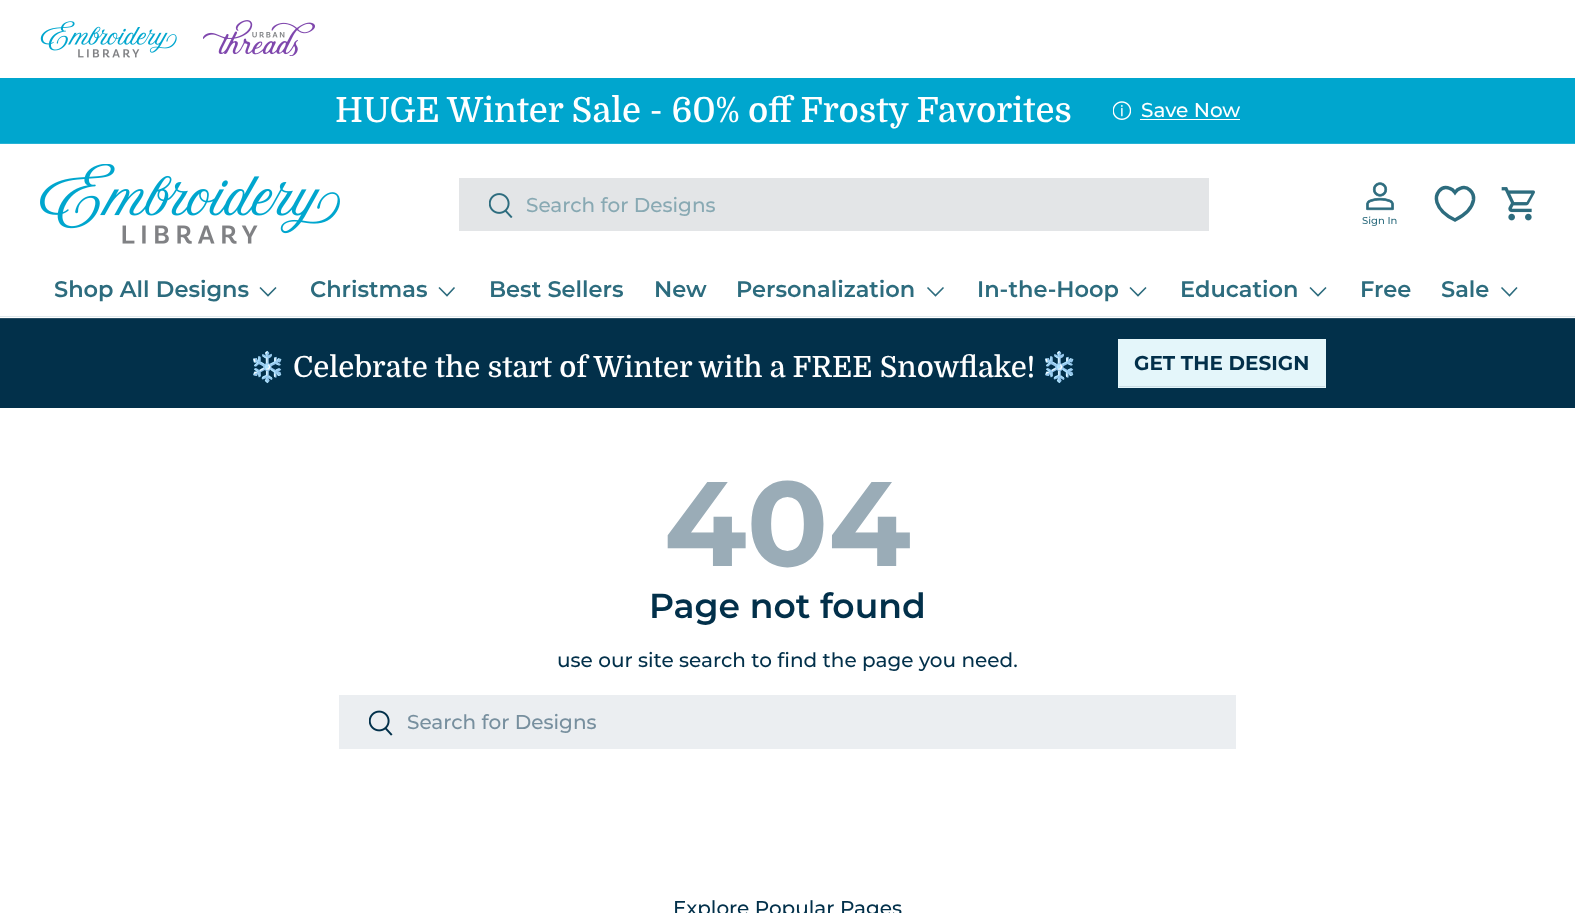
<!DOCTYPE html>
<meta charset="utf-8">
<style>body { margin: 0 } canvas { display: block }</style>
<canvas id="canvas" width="1575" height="913"></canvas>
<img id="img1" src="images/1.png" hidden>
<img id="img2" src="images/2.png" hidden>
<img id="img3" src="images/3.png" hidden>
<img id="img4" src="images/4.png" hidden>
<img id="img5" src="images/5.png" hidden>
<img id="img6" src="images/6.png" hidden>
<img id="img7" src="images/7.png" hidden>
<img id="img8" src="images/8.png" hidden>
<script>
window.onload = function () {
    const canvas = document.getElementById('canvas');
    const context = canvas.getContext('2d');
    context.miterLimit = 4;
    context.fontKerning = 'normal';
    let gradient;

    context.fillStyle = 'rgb(255, 255, 255)';
    context.fillRect(0, 0, 1575, 913);
    context.drawImage(document.getElementById('img1'), 40, 21, 137, 37);
    context.drawImage(document.getElementById('img2'), 203, 20, 112, 36);
    context.fillStyle = 'rgb(0, 166, 206)';
    context.fillRect(0, 78, 1575, 65);
    context.fillStyle = 'rgb(38, 179, 213)';
    context.fillRect(0, 143, 1575, 1);
    context.drawImage(document.getElementById('img3'), 1113, 101, 18, 19);
    context.fillStyle = 'rgb(255, 255, 255)';
    context.fillRect(1140, 119, 100, 1);
    context.fillStyle = 'rgb(224, 233, 236)';
    context.fillRect(0, 316, 1575, 1);
    context.drawImage(document.getElementById('img4'), 40, 164, 300, 80);
    context.fillStyle = 'rgb(227, 229, 231)';
    context.fillRect(459, 178, 750, 53);
    context.drawImage(document.getElementById('img5'), 489, 193, 24, 25);
    context.drawImage(document.getElementById('img6'), 1366, 182, 28, 29);
    context.beginPath();
    context.moveTo(1455, 220);
    context.bezierCurveTo(1447.5, 216.5, 1439.5, 210.5, 1437, 202.5);
    context.bezierCurveTo(1434.5, 194, 1441, 184.5, 1450, 188.5);
    context.bezierCurveTo(1452, 189, 1453.5, 190.5, 1455, 192.5);
    context.bezierCurveTo(1456.5, 190.5, 1458, 189, 1460, 188.5);
    context.bezierCurveTo(1467.5, 185, 1474.5, 192.5, 1473.5, 200);
    context.bezierCurveTo(1472, 209.5, 1463, 216, 1455, 220);
    context.closePath();
    context.strokeStyle = 'rgb(45, 108, 126)';
    context.lineWidth = 3.5;
    context.stroke();
    context.drawImage(document.getElementById('img7'), 1501, 187, 34, 34);
    context.beginPath();
    context.moveTo(276, 287.5);
    context.lineTo(268, 295.5);
    context.lineTo(260, 287.5);
    context.lineWidth = 1.6;
    context.stroke();
    context.beginPath();
    context.moveTo(454.5, 287.5);
    context.lineTo(447, 295.5);
    context.lineTo(439, 287.5);
    context.stroke();
    context.beginPath();
    context.moveTo(943.5, 287.5);
    context.lineTo(935.5, 295.5);
    context.lineTo(927.5, 287.5);
    context.stroke();
    context.beginPath();
    context.moveTo(1146, 287.5);
    context.lineTo(1138, 295.5);
    context.lineTo(1130, 287.5);
    context.stroke();
    context.beginPath();
    context.moveTo(1326, 287.5);
    context.lineTo(1318, 295.5);
    context.lineTo(1310, 287.5);
    context.stroke();
    context.beginPath();
    context.moveTo(1517, 287.5);
    context.lineTo(1509.5, 295.5);
    context.lineTo(1501.5, 287.5);
    context.stroke();
    context.fillStyle = 'rgb(2, 48, 74)';
    context.fillRect(0, 319, 1575, 89);
    context.fillStyle = 'rgb(40, 79, 101)';
    context.fillRect(0, 318, 1575, 1);
    context.fillStyle = 'rgb(204, 222, 229)';
    context.fillRect(1119, 386, 206, 1);
    gradient = context.createLinearGradient(719, 289, 1312, 437);
    gradient.addColorStop(0.6, 'rgb(204, 222, 229)');
    gradient.addColorStop(0.6, 'rgb(228, 246, 250)');
    gradient.addColorStop(1, 'rgb(228, 246, 250)');
    context.fillStyle = gradient;
    context.fillRect(1119, 340, 206, 46);
    context.strokeStyle = 'rgb(228, 246, 250)';
    context.lineWidth = 1;
    context.strokeRect(1118.5, 339.5, 207, 48);
    context.fillStyle = 'rgb(235, 238, 241)';
    context.fillRect(339, 695, 897, 54);
    context.drawImage(document.getElementById('img8'), 369, 710, 24, 26);
    context.font = '500 34.6px Domine';
    context.fillStyle = 'rgb(255, 255, 255)';
    context.fillText('HUGE Winter Sale - 60% off Frosty Favorites', 335, 122);
    context.font = '500 20px Montserrat';
    context.fillText('Save Now', 1141, 117);
    context.fillStyle = 'rgb(136, 169, 179)';
    context.fillText('Search for Designs', 526, 212);
    context.font = '500 10px Montserrat';
    context.fillStyle = 'rgb(45, 108, 126)';
    context.fillText('Sign In', 1362, 224);
    context.font = '600 22.5px Montserrat';
    context.fillText('Shop All Designs', 54, 297);
    context.fillText('Christmas', 310, 297);
    context.fillText('Best Sellers', 489, 297);
    context.fillText('New', 654, 297);
    context.fillText('Personalization', 736, 297);
    context.fillText('In-the-Hoop', 977, 297);
    context.fillText('Education', 1180, 297);
    context.fillText('Free', 1360, 297);
    context.fillText('Sale', 1441, 297);
    context.font = '29.25px Noto Color Emoji';
    context.fillStyle = 'rgb(255, 255, 255)';
    context.fillText('❄️', 249, 377);
    context.font = '500 29.25px Domine';
    context.fillText('Celebrate the start of Winter with a FREE Snowflake!', 293, 377);
    context.font = '29.25px Noto Color Emoji';
    context.fillText('❄️', 1041, 377);
    context.font = 'bold 20px Montserrat';
    context.fillStyle = 'rgb(2, 48, 74)';
    context.fillText('GET THE DESIGN', 1134, 370);
    context.font = 'bold 120px Montserrat';
    context.fillStyle = 'rgb(154, 172, 183)';
    context.fillText('404', 664, 566);
    context.font = '600 34.6px Montserrat';
    context.fillStyle = 'rgb(2, 48, 74)';
    context.fillText('Page not found', 649, 618);
    context.font = '500 20px Montserrat';
    context.fillText('use our site search to find the page you need.', 557, 667);
    context.fillStyle = 'rgb(119, 143, 158)';
    context.fillText('Search for Designs', 407, 729);
    context.fillStyle = 'rgb(2, 48, 74)';
    context.fillText('Explore Popular Pages', 673, 915);
};
</script>
